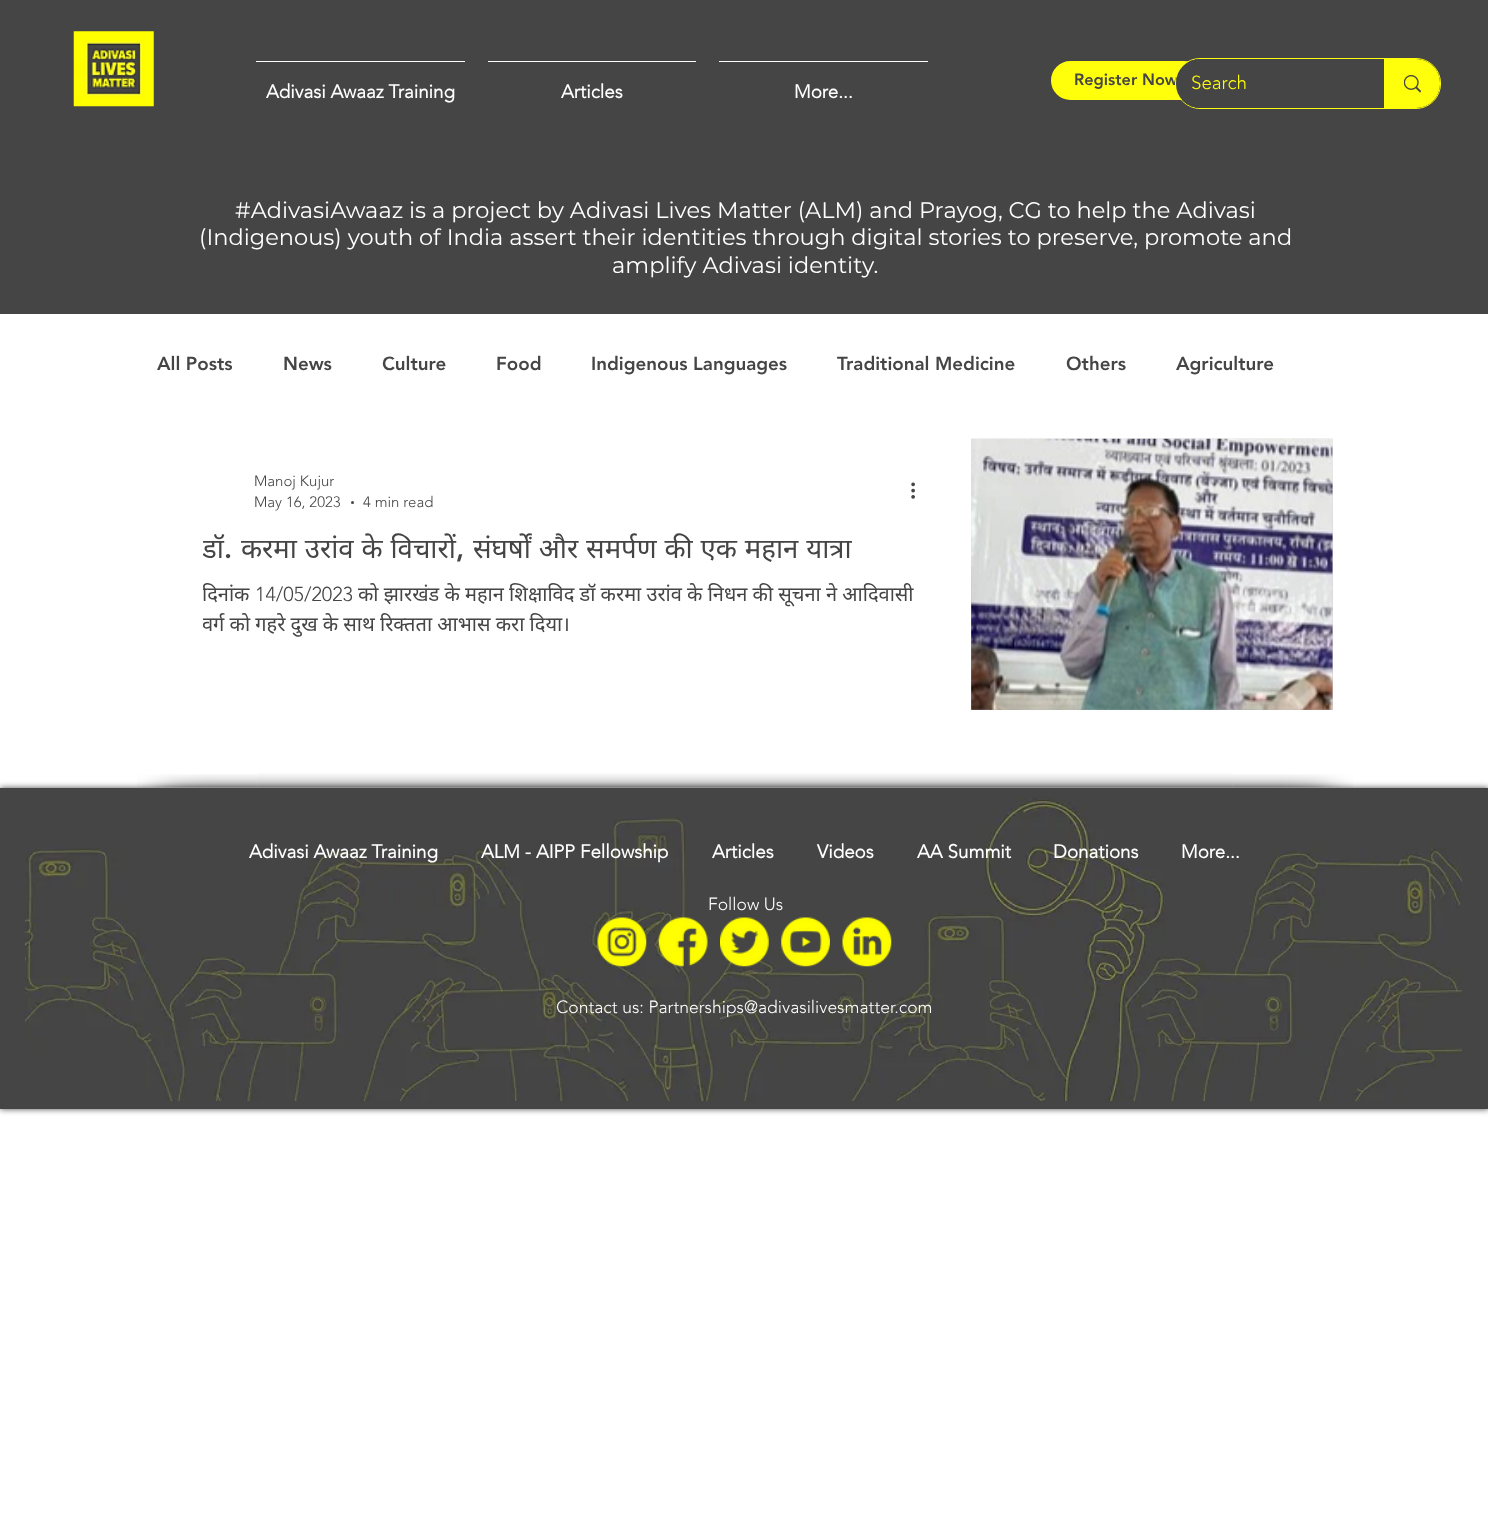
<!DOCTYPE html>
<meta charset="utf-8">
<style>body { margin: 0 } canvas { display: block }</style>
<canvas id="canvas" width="1488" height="1524"></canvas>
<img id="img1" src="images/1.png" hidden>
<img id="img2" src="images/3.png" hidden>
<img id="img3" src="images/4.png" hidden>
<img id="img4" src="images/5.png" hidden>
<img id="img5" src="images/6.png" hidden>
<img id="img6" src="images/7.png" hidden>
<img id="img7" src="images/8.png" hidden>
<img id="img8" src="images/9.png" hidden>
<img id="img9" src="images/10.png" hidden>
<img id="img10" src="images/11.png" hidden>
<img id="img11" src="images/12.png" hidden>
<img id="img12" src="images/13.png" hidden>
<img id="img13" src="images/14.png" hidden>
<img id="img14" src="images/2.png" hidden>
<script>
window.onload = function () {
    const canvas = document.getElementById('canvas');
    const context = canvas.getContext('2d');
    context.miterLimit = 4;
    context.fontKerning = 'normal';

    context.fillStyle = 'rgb(255, 255, 255)';
    context.fillRect(0, 0, 1488, 1524);
    context.fillStyle = 'rgb(69, 69, 69)';
    context.fillRect(0, 0, 1488, 314);
    context.drawImage(document.getElementById('img1'), 73, 31, 81, 76);
    context.fillStyle = 'rgb(255, 255, 11)';
    context.beginPath();
    context.roundRect(1052.5, 62.5, 149, 36, 18);
    context.fill();
    context.strokeStyle = 'rgb(255, 255, 11)';
    context.lineWidth = 3;
    context.stroke();
    context.fillStyle = 'rgb(255, 255, 255)';
    context.fillRect(256, 61, 209, 1);
    context.fillRect(488, 61, 208, 1);
    context.fillRect(719, 61, 209, 1);
    context.fillStyle = 'rgb(69, 69, 69)';
    context.beginPath();
    context.arc(352.5, 502.5, 1.5, 0, 2 * Math.PI);
    context.fill();
    context.drawImage(document.getElementById('img2'), 911, 482, 4, 17);
    context.drawImage(document.getElementById('img3'), 971, 438, 362, 272);
    context.drawImage(document.getElementById('img4'), 971, 438, 362, 272);
    context.fillStyle = 'rgba(0, 0, 0, 0.7)';
    context.filter = 'blur(3px)';
    context.beginPath();
    context.rect(0, 788, 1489, 321);
    context.fill();
    context.filter = 'none';
    context.fillStyle = 'rgb(69, 69, 69)';
    context.fillRect(0, 788, 1488, 321);
    context.drawImage(document.getElementById('img5'), 137, 774, 121, 14);
    context.drawImage(document.getElementById('img6'), 257, 773, 976, 15);
    context.drawImage(document.getElementById('img7'), 1232, 774, 121, 14);
    context.drawImage(document.getElementById('img8'), 25, 797, 1437, 304);
    context.drawImage(document.getElementById('img9'), 597, 917, 50, 50);
    context.drawImage(document.getElementById('img10'), 658, 917, 50, 50);
    context.drawImage(document.getElementById('img11'), 720, 917, 49, 50);
    context.drawImage(document.getElementById('img12'), 781, 917, 49, 50);
    context.drawImage(document.getElementById('img13'), 842, 917, 50, 50);
    context.font = '900 16.25px "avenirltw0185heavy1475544"';
    context.fillText('Register Now', 1074, 85);
    context.font = 'bold 18.75px "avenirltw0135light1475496"';
    context.fillStyle = 'rgb(255, 255, 255)';
    context.fillText('Adivasi Awaaz Training', 266, 98);
    context.fillText('Articles', 561, 98);
    context.fillText('More...', 794, 98);
    context.beginPath();
    context.roundRect(1175.5, 58.5, 265, 50, 24.5);
    context.lineWidth = 1;
    context.stroke();
    context.fillStyle = 'rgb(69, 69, 69)';
    context.beginPath();
    context.roundRect(1176, 59, 264, 49, 24);
    context.fill();
    context.font = '300 18.75px "avenirltw0135light1475496"';
    context.fillStyle = 'rgb(255, 255, 11)';
    context.fillText('Search', 1191, 89);
    context.beginPath();
    context.roundRect(1384, 59, 56, 49, [0, 24, 24, 0]);
    context.fill();
    context.drawImage(document.getElementById('img14'), 1404, 75, 17, 18);
    context.font = '22.5px Montserrat';
    context.fillStyle = 'rgb(255, 255, 255)';
    context.fillText('#AdivasiAwaaz is a project by Adivasi Lives Matter (ALM) and Prayog, CG to help the Adivasi', 235, 218);
    context.fillText('(Indigenous) youth of India assert their identities through digital stories to preserve, promote and', 199, 245);
    context.fillText('amplify Adivasi identity.', 612, 273);
    context.font = '900 18.75px "avenirltw0185heavy1475544"';
    context.fillStyle = 'rgb(69, 69, 69)';
    context.fillText('All Posts', 157, 370);
    context.fillText('News', 283, 370);
    context.fillText('Culture', 382, 370);
    context.fillText('Food', 496, 370);
    context.fillText('Indigenous Languages', 591, 370);
    context.fillText('Traditional Medicine', 837, 370);
    context.fillText('Others', 1066, 370);
    context.fillText('Agriculture', 1176, 370);
    context.font = '300 15px "avenirltw0135light1475496"';
    context.fillText('Manoj Kujur', 254, 486);
    context.fillText('May 16, 2023', 254, 507);
    context.fillText('4 min read', 363, 507);
    context.save();
    context.beginPath();
    context.rect(203, 528, 723, 37);
    context.clip();
    context.font = '27.5px Noto Sans';
    context.fillText('डॉ', 202, 558);
    context.restore();
    context.font = '900 27.5px "avenirltw0185heavy1475544"';
    context.fillText('.', 224, 558);
    context.wordSpacing = '0.75px';
    context.font = '27.5px Noto Sans';
    context.fillText('करमा उरांव के विचारों', 241, 558);
    context.wordSpacing = '0px';
    context.font = '900 27.5px "avenirltw0185heavy1475544"';
    context.fillText(',', 456, 558);
    context.wordSpacing = '0.75px';
    context.font = '27.5px Noto Sans';
    context.fillText('संघर्षों और समर्पण की एक महान यात्रा', 473, 558);
    context.save();
    context.beginPath();
    context.rect(203, 580, 723, 60);
    context.clip();
    context.wordSpacing = '0px';
    context.font = '20px Noto Sans';
    context.fillText('दिनांक', 202, 601);
    context.restore();
    context.wordSpacing = '0px';
    context.font = '300 20px "avenirltw0135light1475496"';
    context.fillText('14/05/2023', 255, 601);
    context.font = '20px Noto Sans';
    context.fillText('को झारखंड के महान शिक्षाविद डॉ करमा उरांव के निधन की सूचना ने आदिवासी', 358, 601);
    context.save();
    context.beginPath();
    context.rect(203, 580, 723, 60);
    context.clip();
    context.fillText('वर्ग को गहरे दुख के साथ रिक्तता आभास करा दिया।', 202, 631);
    context.restore();
    context.font = 'bold 18.75px "avenirltw0135light1475496"';
    context.fillStyle = 'rgb(255, 255, 255)';
    context.fillText('Adivasi Awaaz Training', 249, 858);
    context.fillText('ALM - AIPP Fellowship', 481, 858);
    context.fillText('Articles', 712, 858);
    context.fillText('Videos', 817, 858);
    context.fillText('AA Summit', 917, 858);
    context.fillText('Donations', 1053, 858);
    context.fillText('More...', 1181, 858);
    context.font = '300 17.5px "avenirltw0135light1475496"';
    context.fillText('Follow Us', 708, 910);
    context.fillText('Contact us: Partnerships@adivasilivesmatter.com', 556, 1013);
};
</script>
